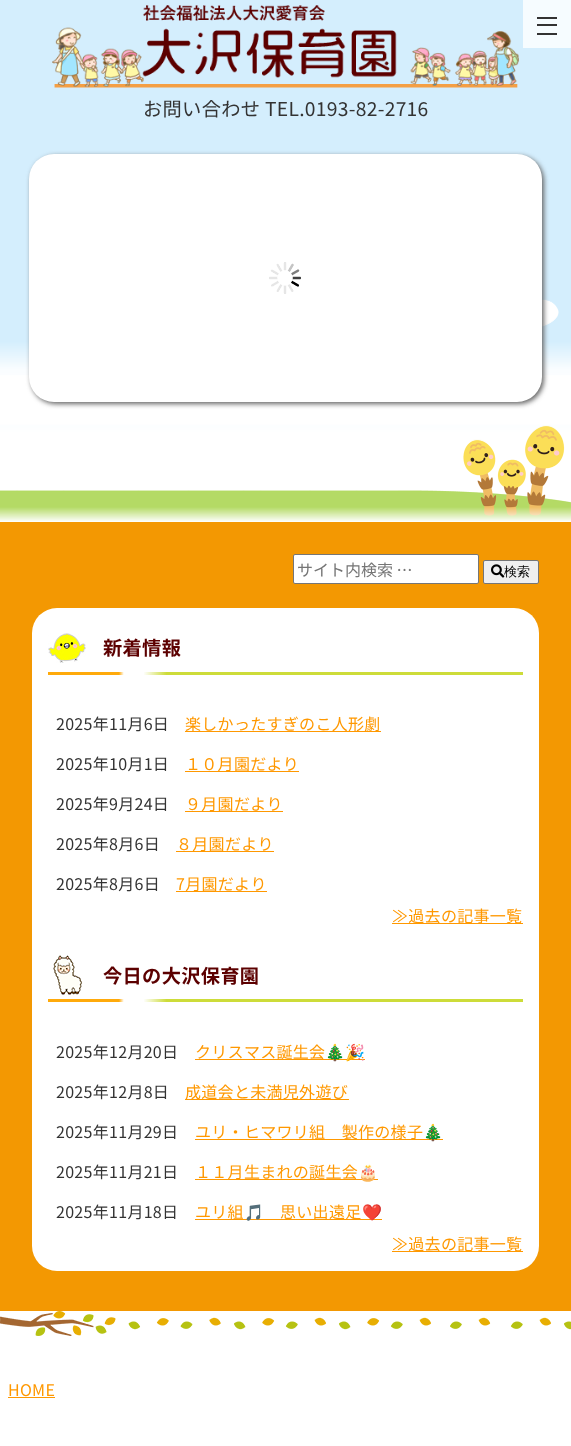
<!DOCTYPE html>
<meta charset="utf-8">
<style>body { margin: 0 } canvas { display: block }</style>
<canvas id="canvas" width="571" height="1446"></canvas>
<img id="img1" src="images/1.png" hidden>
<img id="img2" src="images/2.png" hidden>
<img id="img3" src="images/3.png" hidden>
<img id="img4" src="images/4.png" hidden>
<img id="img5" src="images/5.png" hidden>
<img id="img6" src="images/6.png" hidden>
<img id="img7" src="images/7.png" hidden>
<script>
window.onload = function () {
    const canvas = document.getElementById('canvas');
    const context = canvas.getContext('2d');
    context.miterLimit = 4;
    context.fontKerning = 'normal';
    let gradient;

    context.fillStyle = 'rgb(243, 152, 2)';
    context.fillRect(0, 0, 571, 1446);
    context.fillStyle = 'rgb(212, 238, 253)';
    context.fillRect(0, 0, 571, 274);
    context.fillStyle = 'rgb(246, 252, 255)';
    context.fillRect(523, 0, 48, 48);
    context.fillStyle = 'rgb(51, 51, 51)';
    context.fillRect(537, 24, 20, 2);
    context.fillRect(537, 17, 20, 2);
    context.fillRect(537, 33, 20, 2);
    context.drawImage(document.getElementById('img1'), 52, 5, 467, 83);
    context.drawImage(document.getElementById('img2'), 0, 274, 571, 248);
    context.fillStyle = 'rgb(102, 102, 102)';
    context.filter = 'blur(2.5px)';
    context.beginPath();
    context.roundRect(31, 156, 513, 248, 25);
    context.fill();
    context.filter = 'none';
    context.fillStyle = 'rgb(255, 255, 255)';
    context.beginPath();
    context.roundRect(29, 154, 513, 248, 25);
    context.fill();
    context.drawImage(document.getElementById('img3'), 269, 262, 32, 32);
    context.beginPath();
    context.roundRect(293.5, 554.5, 185, 29, 1.5);
    context.fill();
    context.strokeStyle = 'rgb(118, 118, 118)';
    context.stroke();
    context.fillStyle = 'rgb(239, 239, 239)';
    context.beginPath();
    context.roundRect(483.5, 560.5, 55, 23, 1.5);
    context.fill();
    context.stroke();
    context.drawImage(document.getElementById('img4'), 491, 564, 14, 14);
    context.fillStyle = 'rgb(255, 255, 255)';
    context.beginPath();
    context.roundRect(32, 608, 507, 663, 25);
    context.fill();
    context.drawImage(document.getElementById('img5'), 48, 633, 38, 30);
    context.fillStyle = 'rgb(205, 220, 57)';
    context.fillRect(167, 672, 356, 3);
    context.fillStyle = 'rgb(255, 170, 11)';
    context.fillRect(48, 672, 71, 3);
    gradient = context.createLinearGradient(119, 674, 167, 674);
    gradient.addColorStop(0, 'rgb(255, 170, 11)');
    gradient.addColorStop(0.1, 'rgb(255, 255, 255)');
    gradient.addColorStop(0.51, 'rgb(255, 255, 255)');
    gradient.addColorStop(0.99, 'rgb(205, 220, 57)');
    context.fillStyle = gradient;
    context.fillRect(119, 672, 48, 3);
    context.fillStyle = 'rgb(255, 152, 0)';
    context.fillRect(185, 731, 196, 1);
    context.fillRect(185, 771, 114, 1);
    context.fillRect(185, 811, 98, 1);
    context.fillRect(176, 851, 98, 1);
    context.fillRect(176, 891, 91, 1);
    context.fillRect(392, 923, 131, 1);
    context.drawImage(document.getElementById('img6'), 53, 955, 29, 40);
    context.fillStyle = 'rgb(205, 220, 57)';
    context.fillRect(167, 999, 356, 3);
    context.fillStyle = 'rgb(255, 170, 11)';
    context.fillRect(48, 999, 71, 3);
    gradient = context.createLinearGradient(119, 1001, 167, 1001);
    gradient.addColorStop(0, 'rgb(255, 170, 11)');
    gradient.addColorStop(0.1, 'rgb(255, 255, 255)');
    gradient.addColorStop(0.51, 'rgb(255, 255, 255)');
    gradient.addColorStop(0.99, 'rgb(205, 220, 57)');
    context.fillStyle = gradient;
    context.fillRect(119, 999, 48, 3);
    context.fillStyle = 'rgb(255, 152, 0)';
    context.fillRect(195, 1059, 170, 1);
    context.fillRect(185, 1099, 164, 1);
    context.fillRect(195, 1139, 248, 1);
    context.fillRect(195, 1179, 183, 1);
    context.fillRect(195, 1219, 187, 1);
    context.fillRect(392, 1251, 131, 1);
    context.fillStyle = 'rgb(255, 255, 255)';
    context.fillRect(0, 1311, 571, 135);
    context.drawImage(document.getElementById('img7'), 0, 1311, 571, 25);
    context.fillStyle = 'rgb(255, 152, 0)';
    context.fillRect(8, 1397, 47, 1);
    context.letterSpacing = '0.3px';
    context.font = '19.25px Noto Sans JP';
    context.fillStyle = 'rgb(51, 51, 51)';
    context.fillText('お問い合わせ TEL.0193-82-2716', 143, 116);
    context.letterSpacing = '0px';
    context.font = '16px Noto Sans JP';
    context.fillStyle = 'rgb(117, 117, 117)';
    context.fillText('サイト内検索 …', 297, 576);
    context.font = '500 13px WenQuanYi Zen Hei';
    context.fillStyle = 'rgb(0, 0, 0)';
    context.fillText('検索', 504, 576);
    context.letterSpacing = '0.3px';
    context.font = 'bold 19.25px Noto Sans JP';
    context.fillStyle = 'rgb(92, 0, 0)';
    context.fillText('新着情報', 103, 655);
    context.font = '16px Noto Sans JP';
    context.fillStyle = 'rgb(51, 51, 51)';
    context.fillText('2025年11月6日', 56, 730);
    context.fillStyle = 'rgb(255, 152, 0)';
    context.fillText('楽しかったすぎのこ人形劇', 185, 730);
    context.fillStyle = 'rgb(51, 51, 51)';
    context.fillText('2025年10月1日', 56, 770);
    context.fillStyle = 'rgb(255, 152, 0)';
    context.fillText('１０月園だより', 185, 770);
    context.fillStyle = 'rgb(51, 51, 51)';
    context.fillText('2025年9月24日', 56, 810);
    context.fillStyle = 'rgb(255, 152, 0)';
    context.fillText('９月園だより', 185, 810);
    context.fillStyle = 'rgb(51, 51, 51)';
    context.fillText('2025年8月6日', 56, 850);
    context.fillStyle = 'rgb(255, 152, 0)';
    context.fillText('８月園だより', 176, 850);
    context.fillStyle = 'rgb(51, 51, 51)';
    context.fillText('2025年8月6日', 56, 890);
    context.fillStyle = 'rgb(255, 152, 0)';
    context.fillText('7月園だより', 176, 890);
    context.fillText('≫過去の記事一覧', 392, 922);
    context.font = 'bold 19.25px Noto Sans JP';
    context.fillStyle = 'rgb(92, 0, 0)';
    context.fillText('今日の大沢保育園', 103, 983);
    context.font = '16px Noto Sans JP';
    context.fillStyle = 'rgb(51, 51, 51)';
    context.fillText('2025年12月20日', 56, 1058);
    context.fillStyle = 'rgb(255, 152, 0)';
    context.fillText('クリスマス誕生会', 195, 1058);
    context.font = '16px Noto Color Emoji';
    context.fillText('🎄🎉', 325, 1058);
    context.font = '16px Noto Sans JP';
    context.fillStyle = 'rgb(51, 51, 51)';
    context.fillText('2025年12月8日', 56, 1098);
    context.fillStyle = 'rgb(255, 152, 0)';
    context.fillText('成道会と未満児外遊び', 185, 1098);
    context.fillStyle = 'rgb(51, 51, 51)';
    context.fillText('2025年11月29日', 56, 1138);
    context.fillStyle = 'rgb(255, 152, 0)';
    context.fillText('ユリ・ヒマワリ組　製作の様子', 195, 1138);
    context.font = '16px Noto Color Emoji';
    context.fillText('🎄', 423, 1138);
    context.font = '16px Noto Sans JP';
    context.fillStyle = 'rgb(51, 51, 51)';
    context.fillText('2025年11月21日', 56, 1178);
    context.fillStyle = 'rgb(255, 152, 0)';
    context.fillText('１１月生まれの誕生会', 195, 1178);
    context.font = '16px Noto Color Emoji';
    context.fillText('🎂', 358, 1178);
    context.font = '16px Noto Sans JP';
    context.fillStyle = 'rgb(51, 51, 51)';
    context.fillText('2025年11月18日', 56, 1218);
    context.fillStyle = 'rgb(255, 152, 0)';
    context.fillText('ユリ組', 195, 1218);
    context.font = '16px Noto Color Emoji';
    context.fillText('🎵', 244, 1218);
    context.font = '16px Noto Sans JP';
    context.fillText('思い出遠足', 280, 1218);
    context.font = '16px Noto Color Emoji';
    context.fillText('❤️', 362, 1218);
    context.font = '16px Noto Sans JP';
    context.fillText('≫過去の記事一覧', 392, 1250);
    context.fillText('HOME', 8, 1396);
};
</script>
